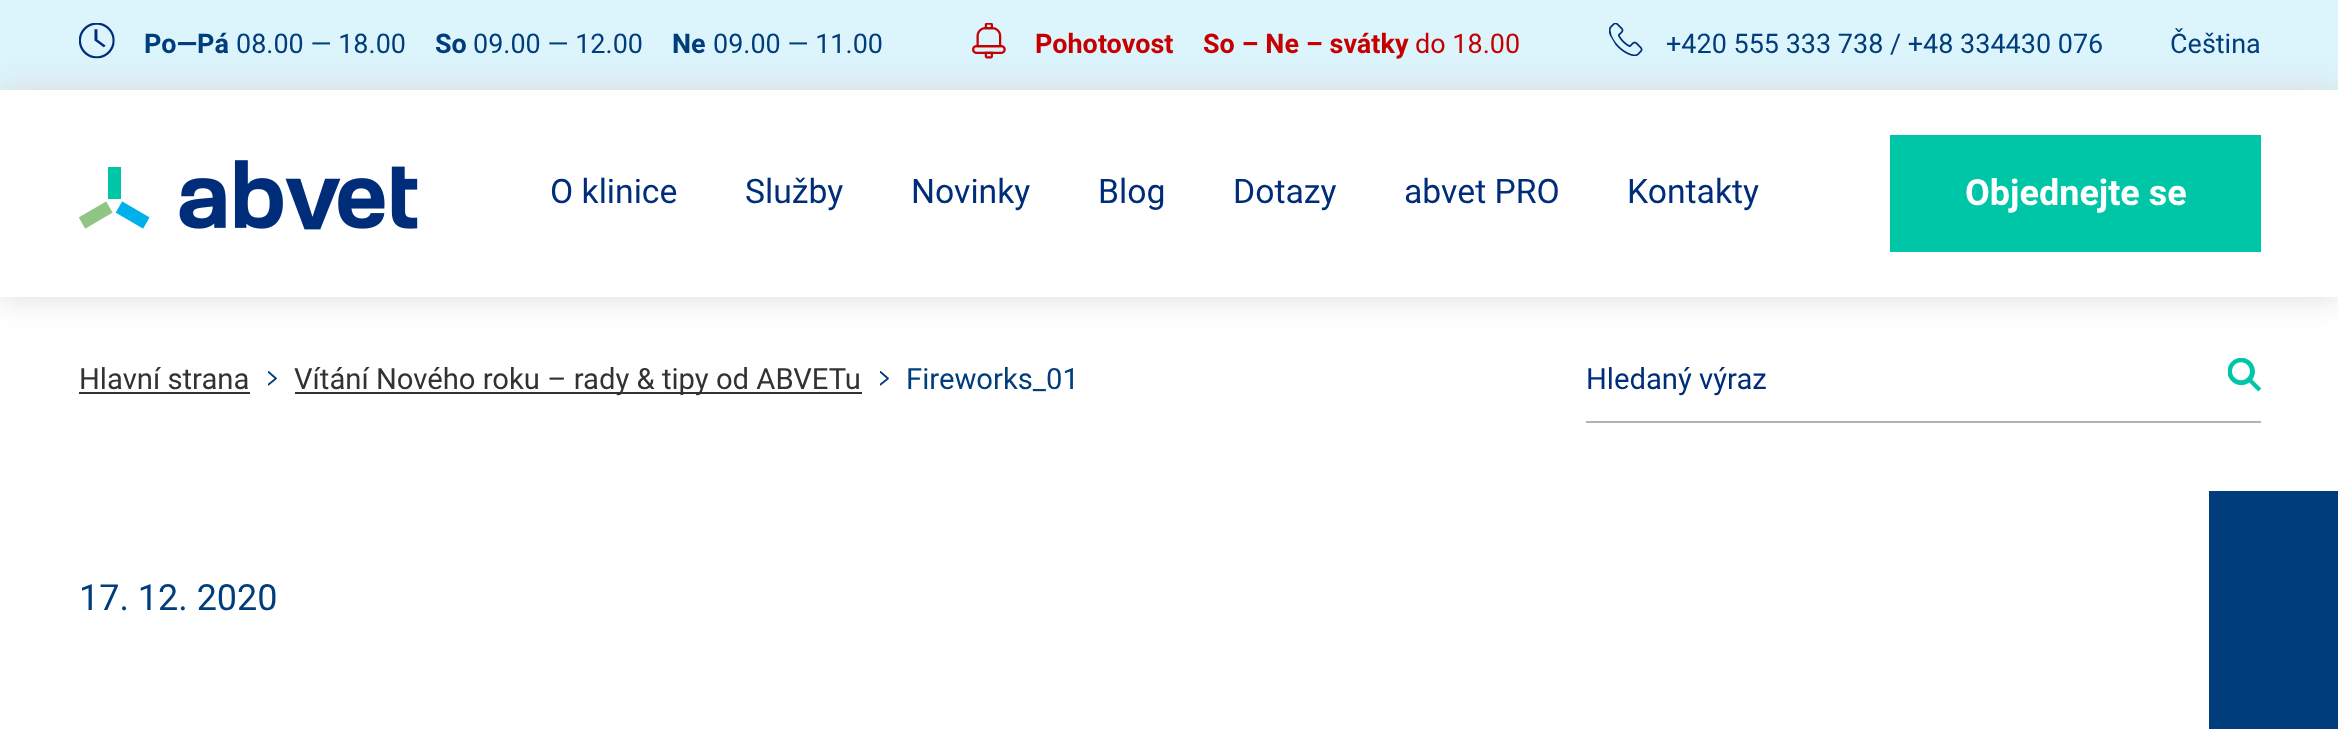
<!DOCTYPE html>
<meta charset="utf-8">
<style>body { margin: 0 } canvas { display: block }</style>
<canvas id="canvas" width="2338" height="729"></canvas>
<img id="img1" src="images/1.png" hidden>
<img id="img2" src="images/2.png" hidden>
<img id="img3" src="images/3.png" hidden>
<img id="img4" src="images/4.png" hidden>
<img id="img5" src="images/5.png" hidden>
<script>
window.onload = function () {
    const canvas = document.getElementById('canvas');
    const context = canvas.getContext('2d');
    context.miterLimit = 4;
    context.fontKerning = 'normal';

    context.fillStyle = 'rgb(255, 255, 255)';
    context.fillRect(0, 0, 2338, 729);
    context.fillStyle = 'rgb(220, 244, 252)';
    context.fillRect(0, 0, 2338, 90);
    context.drawImage(document.getElementById('img1'), 79, 23, 36, 36);
    context.drawImage(document.getElementById('img2'), 972, 23, 34, 36);
    context.drawImage(document.getElementById('img3'), 1609, 23, 34, 33);
    context.save();
    context.beginPath();
    context.moveTo(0, 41);
    context.lineTo(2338, 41);
    context.lineTo(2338, 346);
    context.lineTo(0, 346);
    context.closePath();
    context.moveTo(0, 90);
    context.lineTo(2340, 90);
    context.lineTo(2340, 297);
    context.lineTo(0, 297);
    context.closePath();
    context.clip('evenodd');
    context.fillStyle = 'rgb(218, 218, 218)';
    context.filter = 'blur(16px)';
    context.beginPath();
    context.rect(0, 90, 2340, 207);
    context.fill();
    context.filter = 'none';
    context.restore();
    context.drawImage(document.getElementById('img4'), 79, 160, 339, 70);
    context.fillStyle = 'rgb(0, 198, 168)';
    context.fillRect(1890, 135, 371, 117);
    context.fillStyle = 'rgb(50, 50, 50)';
    context.fillRect(79, 392, 171, 2);
    context.save();
    context.beginPath();
    context.rect(268, 371, 9, 16);
    context.clip();
    context.beginPath();
    context.moveTo(268.5, 372);
    context.lineTo(276, 378.5);
    context.lineTo(268.5, 384.5);
    context.strokeStyle = 'rgb(0, 61, 124)';
    context.lineWidth = 1.8;
    context.lineCap = 'round';
    context.lineJoin = 'round';
    context.stroke();
    context.restore();
    context.fillRect(295, 392, 567, 2);
    context.save();
    context.beginPath();
    context.rect(880, 371, 9, 16);
    context.clip();
    context.beginPath();
    context.moveTo(880.5, 372);
    context.lineTo(888, 378.5);
    context.lineTo(880.5, 384.5);
    context.strokeStyle = 'rgb(0, 61, 124)';
    context.lineWidth = 1.8;
    context.lineCap = 'round';
    context.lineJoin = 'round';
    context.stroke();
    context.restore();
    context.fillStyle = 'rgb(179, 179, 179)';
    context.fillRect(1586, 421, 675, 2);
    context.drawImage(document.getElementById('img5'), 2228, 358, 33, 34);
    context.fillStyle = 'rgb(0, 61, 124)';
    context.fillRect(2209, 491, 129, 238);
    context.font = 'bold 27px Roboto';
    context.fillText('Po—Pá', 144, 53);
    context.font = '27px Roboto';
    context.fillText('08.00 — 18.00', 236, 53);
    context.font = 'bold 27px Roboto';
    context.fillText('So', 435, 53);
    context.font = '27px Roboto';
    context.fillText('09.00 — 12.00', 473, 53);
    context.font = 'bold 27px Roboto';
    context.fillText('Ne', 672, 53);
    context.font = '27px Roboto';
    context.fillText('09.00 — 11.00', 713, 53);
    context.font = 'bold 27px Roboto';
    context.fillStyle = 'rgb(198, 0, 0)';
    context.fillText('Pohotovost', 1035, 53);
    context.fillText('So – Ne – svátky', 1203, 53);
    context.font = '27px Roboto';
    context.fillText('do 18.00', 1415, 53);
    context.fillStyle = 'rgb(0, 61, 124)';
    context.fillText('+420 555 333 738 / +48 334430 076', 1666, 53);
    context.fillText('Čeština', 2170, 53);
    context.font = '33.75px Roboto';
    context.fillStyle = 'rgb(0, 45, 122)';
    context.fillText('O klinice', 550, 203);
    context.fillText('Služby', 745, 203);
    context.fillText('Novinky', 911, 203);
    context.fillText('Blog', 1098, 203);
    context.fillText('Dotazy', 1233, 203);
    context.fillText('abvet PRO', 1404, 203);
    context.fillText('Kontakty', 1627, 203);
    context.font = 'bold 36px Roboto';
    context.fillStyle = 'rgb(255, 255, 255)';
    context.fillText('Objednejte se', 1965, 205);
    context.font = '29.25px Roboto';
    context.fillStyle = 'rgb(50, 50, 50)';
    context.fillText('Hlavní strana', 79, 389);
    context.fillText('Vítání Nového roku – rady & tipy od ABVETu', 294, 389);
    context.fillStyle = 'rgb(0, 61, 124)';
    context.fillText('Fireworks_01', 906, 389);
    context.fillStyle = 'rgb(0, 45, 122)';
    context.fillText('Hledaný výraz', 1586, 389);
    context.font = '36px Roboto';
    context.fillStyle = 'rgb(0, 61, 124)';
    context.fillText('17. 12. 2020', 79, 610);
};
</script>
